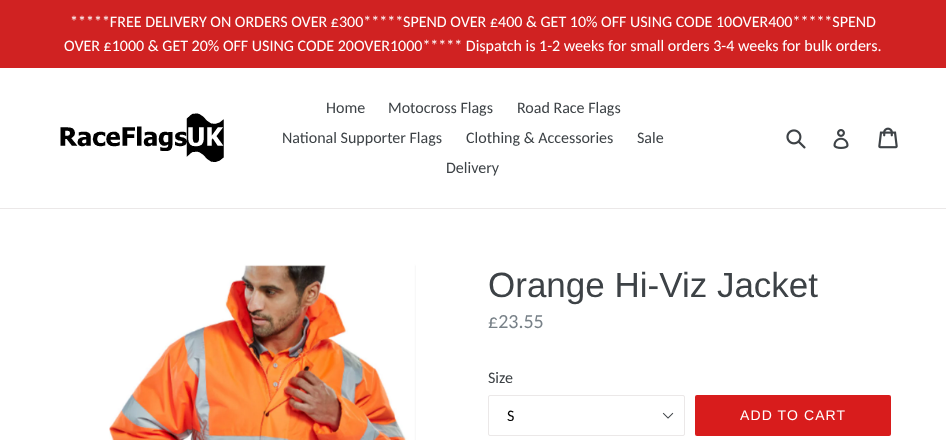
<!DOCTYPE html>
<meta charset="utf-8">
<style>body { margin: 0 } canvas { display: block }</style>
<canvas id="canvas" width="946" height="440"></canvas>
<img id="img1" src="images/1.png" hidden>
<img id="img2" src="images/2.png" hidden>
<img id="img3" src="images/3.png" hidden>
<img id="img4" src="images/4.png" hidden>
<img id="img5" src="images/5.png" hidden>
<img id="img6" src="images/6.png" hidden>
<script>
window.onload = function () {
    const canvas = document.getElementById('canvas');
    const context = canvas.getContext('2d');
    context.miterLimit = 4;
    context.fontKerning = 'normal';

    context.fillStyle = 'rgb(255, 255, 255)';
    context.fillRect(0, 0, 946, 440);
    context.fillStyle = 'rgb(208, 34, 34)';
    context.fillRect(0, 0, 946, 68);
    context.fillStyle = 'rgb(235, 232, 232)';
    context.fillRect(0, 208, 946, 1);
    context.drawImage(document.getElementById('img1'), 60, 113, 164, 49);
    context.drawImage(document.getElementById('img2'), 786, 129, 20, 20);
    context.drawImage(document.getElementById('img3'), 833, 129, 16, 20);
    context.drawImage(document.getElementById('img4'), 878, 127, 20, 22);
    context.drawImage(document.getElementById('img5'), 109, 264, 307, 176);
    context.drawImage(document.getElementById('img6'), 662, 412, 12, 7);
    context.beginPath();
    context.roundRect(488.5, 395.5, 196, 40, 1.5);
    context.strokeStyle = 'rgb(235, 232, 232)';
    context.stroke();
    context.fillStyle = 'rgb(216, 28, 28)';
    context.beginPath();
    context.roundRect(695, 395, 196, 41, 2);
    context.fill();
    context.font = '16px Carlito';
    context.fillStyle = 'rgb(255, 255, 255)';
    context.fillText('*****FREE DELIVERY ON ORDERS OVER £300*****SPEND OVER £400 & GET 10% OFF USING CODE 10OVER400*****SPEND', 70, 27);
    context.fillText('OVER £1000 & GET 20% OFF USING CODE 20OVER1000***** Dispatch is 1-2 weeks for small orders 3-4 weeks for bulk orders.', 64, 51);
    context.fillStyle = 'rgb(61, 66, 70)';
    context.fillText('Home', 326, 113);
    context.fillText('Motocross Flags', 388, 113);
    context.fillText('Road Race Flags', 517, 113);
    context.fillText('National Supporter Flags', 282, 143);
    context.fillText('Clothing & Accessories', 466, 143);
    context.fillText('Sale', 637, 143);
    context.fillText('Delivery', 446, 173);
    context.font = '35px Liberation Sans';
    context.fillText('Orange Hi-Viz Jacket', 488, 297);
    context.font = '20px Carlito';
    context.fillStyle = 'rgb(120, 129, 136)';
    context.fillText('£23.55', 488, 328);
    context.font = '16px Carlito';
    context.fillStyle = 'rgb(61, 66, 70)';
    context.fillText('Size', 488, 383);
    context.fillStyle = 'rgb(0, 0, 0)';
    context.fillText('S', 507, 421);
    context.letterSpacing = '1.1px';
    context.font = '14px Liberation Sans';
    context.fillStyle = 'rgb(255, 255, 255)';
    context.fillText('ADD TO CART', 740, 420);
};
</script>
